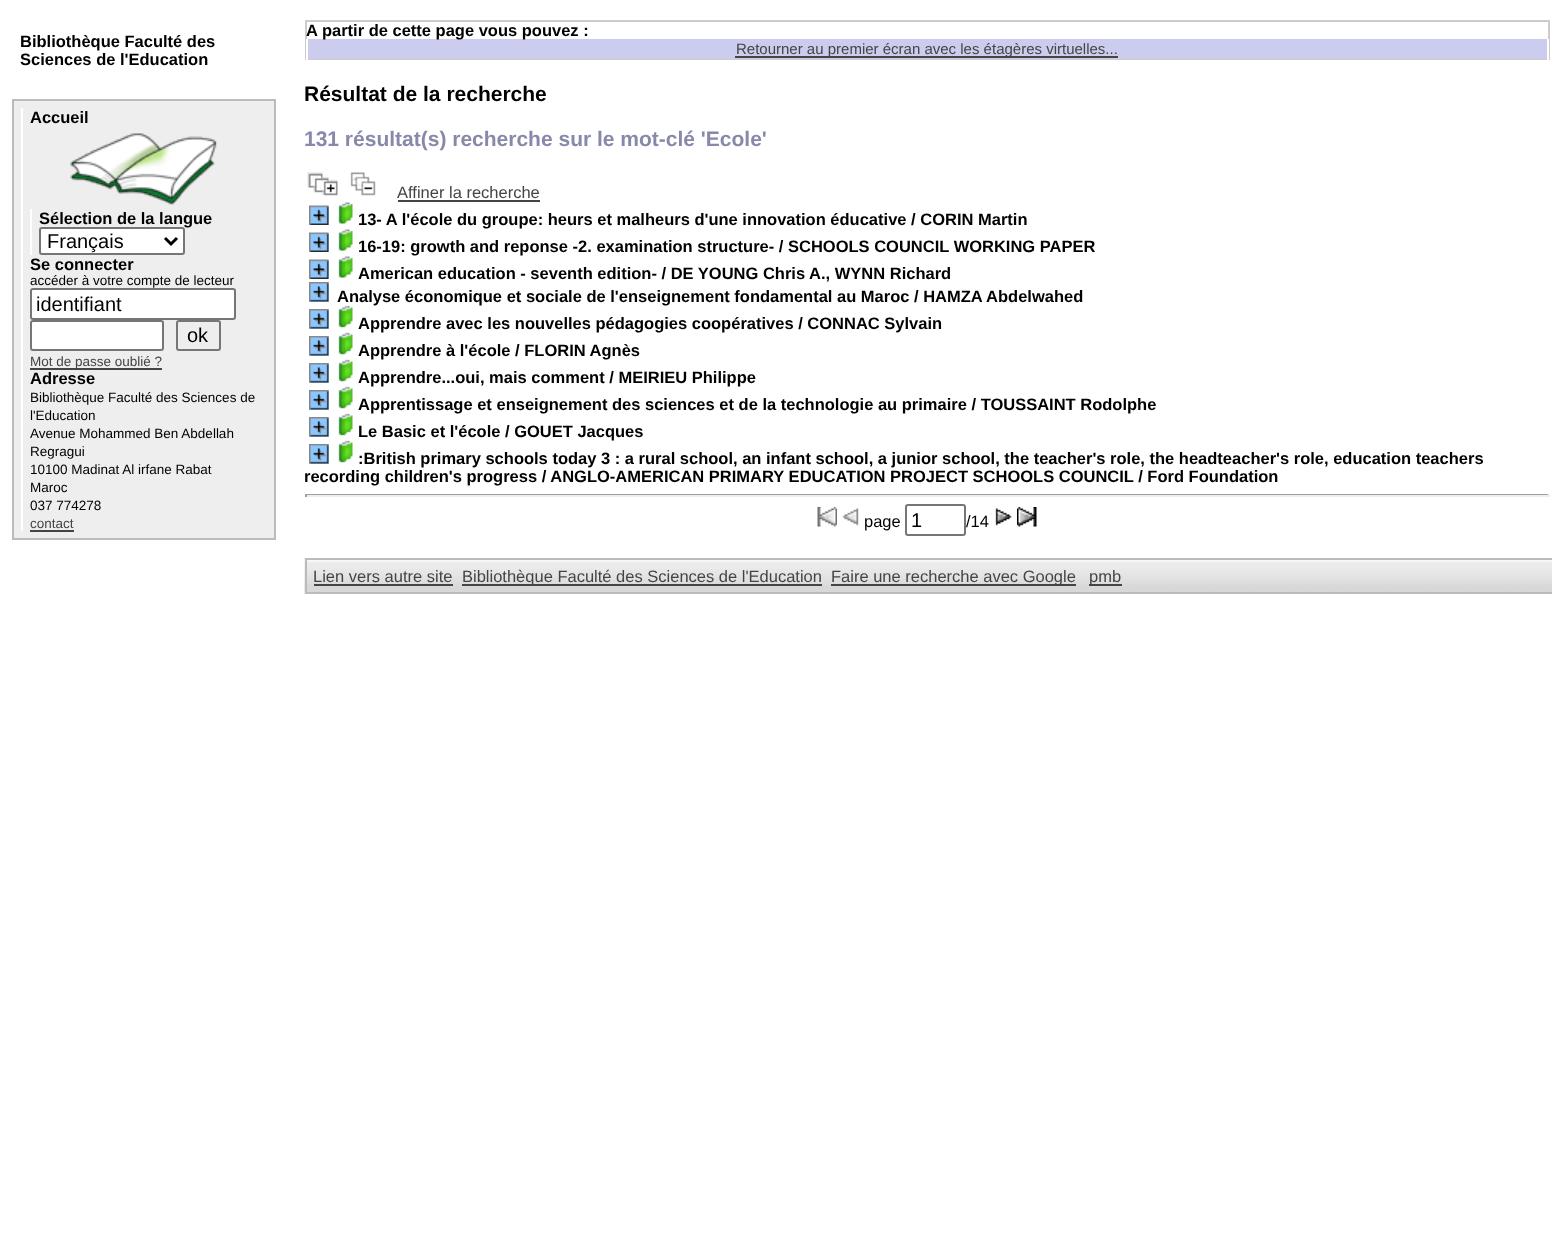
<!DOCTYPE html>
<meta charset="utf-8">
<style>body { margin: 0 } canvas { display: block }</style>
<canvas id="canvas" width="1552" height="1249"></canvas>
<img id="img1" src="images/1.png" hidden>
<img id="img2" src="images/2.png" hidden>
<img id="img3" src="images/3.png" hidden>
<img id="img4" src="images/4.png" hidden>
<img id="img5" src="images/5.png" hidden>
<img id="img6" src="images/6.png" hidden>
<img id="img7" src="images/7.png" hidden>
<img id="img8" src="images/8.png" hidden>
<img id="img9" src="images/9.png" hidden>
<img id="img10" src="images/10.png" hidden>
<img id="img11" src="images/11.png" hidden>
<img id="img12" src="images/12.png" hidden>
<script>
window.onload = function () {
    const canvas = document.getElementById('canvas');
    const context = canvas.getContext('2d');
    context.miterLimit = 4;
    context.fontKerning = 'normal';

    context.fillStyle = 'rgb(255, 255, 255)';
    context.fillRect(0, 0, 1552, 1249);
    context.strokeStyle = 'rgb(204, 204, 204)';
    context.lineWidth = 2;
    context.strokeRect(306, 21, 1243, 38);
    context.fillStyle = 'rgb(204, 204, 238)';
    context.fillRect(308, 39, 1239, 20);
    context.fillStyle = 'rgb(255, 255, 255)';
    context.fillRect(1547, 39, 2, 21);
    context.fillRect(306, 39, 2, 21);
    context.fillStyle = 'rgb(68, 68, 68)';
    context.fillRect(735, 56, 383, 2);
    context.drawImage(document.getElementById('img1'), 307, 172, 31, 24);
    context.drawImage(document.getElementById('img2'), 350, 172, 26, 24);
    context.fillRect(398, 200, 142, 2);
    context.fillStyle = 'rgb(140, 198, 255)';
    context.fillRect(310, 206, 19, 19);
    context.drawImage(document.getElementById('img3'), 309, 205, 20, 20);
    context.drawImage(document.getElementById('img4'), 337, 202, 16, 22);
    context.fillRect(310, 233, 19, 19);
    context.drawImage(document.getElementById('img3'), 309, 232, 20, 20);
    context.drawImage(document.getElementById('img4'), 337, 229, 16, 22);
    context.fillRect(310, 260, 19, 19);
    context.drawImage(document.getElementById('img3'), 309, 259, 20, 20);
    context.drawImage(document.getElementById('img4'), 337, 256, 16, 22);
    context.fillRect(309, 282, 20, 20);
    context.drawImage(document.getElementById('img5'), 309, 282, 20, 20);
    context.fillRect(309, 309, 20, 20);
    context.drawImage(document.getElementById('img5'), 309, 309, 20, 20);
    context.fillRect(309, 336, 20, 20);
    context.drawImage(document.getElementById('img6'), 337, 332, 16, 23);
    context.drawImage(document.getElementById('img5'), 309, 336, 20, 20);
    context.fillRect(309, 363, 20, 20);
    context.drawImage(document.getElementById('img6'), 337, 359, 16, 23);
    context.drawImage(document.getElementById('img5'), 309, 363, 20, 20);
    context.fillRect(309, 390, 20, 20);
    context.drawImage(document.getElementById('img6'), 337, 386, 16, 23);
    context.drawImage(document.getElementById('img5'), 309, 390, 20, 20);
    context.fillRect(309, 417, 20, 20);
    context.drawImage(document.getElementById('img6'), 337, 413, 16, 23);
    context.drawImage(document.getElementById('img5'), 309, 417, 20, 20);
    context.fillRect(309, 444, 20, 20);
    context.drawImage(document.getElementById('img6'), 337, 440, 16, 23);
    context.drawImage(document.getElementById('img5'), 309, 444, 20, 20);
    context.fillStyle = 'rgb(159, 159, 159)';
    context.fillRect(305, 494, 1245, 1);
    context.fillStyle = 'rgb(238, 238, 238)';
    context.fillRect(1548, 494, 2, 3);
    context.fillRect(305, 495, 1245, 2);
    context.fillStyle = 'rgb(159, 159, 159)';
    context.fillRect(305, 494, 2, 3);
    context.drawImage(document.getElementById('img7'), 817, 507, 20, 20);
    context.drawImage(document.getElementById('img8'), 842, 508, 17, 18);
    context.beginPath();
    context.roundRect(906, 505, 59, 30, 2);
    context.strokeStyle = 'rgb(118, 118, 118)';
    context.stroke();
    context.drawImage(document.getElementById('img9'), 995, 508, 17, 18);
    context.drawImage(document.getElementById('img10'), 1017, 507, 20, 20);
    context.drawImage(document.getElementById('img11'), 304, 558, 1248, 36);
    context.strokeStyle = 'rgb(187, 187, 187)';
    context.strokeRect(306, 559, 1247, 34);
    context.fillStyle = 'rgb(68, 68, 68)';
    context.fillRect(314, 584, 139, 2);
    context.fillRect(462, 584, 360, 2);
    context.fillRect(831, 584, 245, 2);
    context.fillRect(1089, 584, 33, 2);
    context.fillStyle = 'rgb(238, 238, 238)';
    context.beginPath();
    context.rect(13, 100, 262, 439);
    context.fill();
    context.stroke();
    context.fillStyle = 'rgb(255, 255, 255)';
    context.fillRect(21, 108, 2, 423);
    context.drawImage(document.getElementById('img12'), 70, 133, 147, 72);
    context.fillRect(30, 209, 2, 46);
    context.beginPath();
    context.roundRect(31, 289, 204, 30, 2);
    context.fill();
    context.strokeStyle = 'rgb(118, 118, 118)';
    context.stroke();
    context.beginPath();
    context.roundRect(31, 321, 132, 29, 2);
    context.fill();
    context.stroke();
    context.beginPath();
    context.roundRect(177, 321, 43, 29, 2);
    context.stroke();
    context.fillStyle = 'rgb(68, 68, 68)';
    context.fillRect(30, 368, 132, 2);
    context.fillRect(30, 530, 44, 2);
    context.font = 'bold 16.5px Liberation Sans';
    context.fillStyle = 'rgb(0, 0, 0)';
    context.fillText('Bibliothèque Faculté des', 20, 47);
    context.fillText('Sciences de l\'Education', 20, 65);
    context.fillText('A partir de cette page vous pouvez :', 306, 36);
    context.font = '15px Liberation Sans';
    context.fillStyle = 'rgb(68, 68, 68)';
    context.fillText('Retourner au premier écran avec les étagères virtuelles...', 736, 54);
    context.font = 'bold 21px Liberation Sans';
    context.fillStyle = 'rgb(0, 0, 0)';
    context.fillText('Résultat de la recherche', 304, 101);
    context.fillStyle = 'rgb(136, 136, 170)';
    context.fillText('131 résultat(s) recherche sur le mot-clé \'Ecole\'', 304, 146);
    context.font = '16.5px Liberation Sans';
    context.fillStyle = 'rgb(68, 68, 68)';
    context.fillText('Affiner la recherche', 397, 198);
    context.font = 'bold 16.5px Liberation Sans';
    context.fillStyle = 'rgb(0, 0, 0)';
    context.fillText('13- A l\'école du groupe: heurs et malheurs d\'une innovation éducative / CORIN Martin', 358, 225);
    context.fillText('16-19: growth and reponse -2. examination structure- / SCHOOLS COUNCIL WORKING PAPER', 358, 252);
    context.fillText('American education - seventh edition- / DE YOUNG Chris A., WYNN Richard', 358, 279);
    context.fillText('Analyse économique et sociale de l\'enseignement fondamental au Maroc / HAMZA Abdelwahed', 337, 302);
    context.drawImage(document.getElementById('img6'), 337, 305, 16, 23);
    context.fillText('Apprendre avec les nouvelles pédagogies coopératives / CONNAC Sylvain', 358, 329);
    context.fillText('Apprendre à l\'école / FLORIN Agnès', 358, 356);
    context.fillText('Apprendre...oui, mais comment / MEIRIEU Philippe', 358, 383);
    context.fillText('Apprentissage et enseignement des sciences et de la technologie au primaire / TOUSSAINT Rodolphe', 358, 410);
    context.fillText('Le Basic et l\'école / GOUET Jacques', 358, 437);
    context.fillText(':British primary schools today 3 : a rural school, an infant school, a junior school, the teacher\'s role, the headteacher\'s role, education teachers', 358, 464);
    context.fillText('recording children\'s progress / ANGLO-AMERICAN PRIMARY EDUCATION PROJECT SCHOOLS COUNCIL / Ford Foundation', 304, 482);
    context.font = '16.5px Liberation Sans';
    context.fillText('page', 864, 527);
    context.font = '20px Liberation Sans';
    context.fillText('1', 911, 527);
    context.font = '16.5px Liberation Sans';
    context.fillText('/14', 966, 527);
    context.fillStyle = 'rgb(68, 68, 68)';
    context.fillText('Lien vers autre site', 313, 582);
    context.fillText('Bibliothèque Faculté des Sciences de l\'Education', 462, 582);
    context.fillText('Faire une recherche avec Google', 831, 582);
    context.fillText('pmb', 1089, 582);
    context.font = 'bold 16.5px Liberation Sans';
    context.fillStyle = 'rgb(0, 0, 0)';
    context.fillText('Accueil', 30, 123);
    context.fillText('Sélection de la langue', 39, 224);
    context.fillStyle = 'rgb(255, 255, 255)';
    context.beginPath();
    context.roundRect(40, 228, 144, 26, 2);
    context.fill();
    context.stroke();
    context.beginPath();
    context.moveTo(165, 238);
    context.lineTo(171, 244);
    context.lineTo(177, 238);
    context.strokeStyle = 'rgb(0, 0, 0)';
    context.lineWidth = 3;
    context.stroke();
    context.font = '20px Liberation Sans';
    context.fillStyle = 'rgb(0, 0, 0)';
    context.fillText('Français', 47, 248);
    context.font = 'bold 16.5px Liberation Sans';
    context.fillText('Se connecter', 30, 270);
    context.font = '13.5px Liberation Sans';
    context.fillText('accéder à votre compte de lecteur', 30, 285);
    context.font = '20px Liberation Sans';
    context.fillText('identifiant', 36, 311);
    context.fillText('ok', 187, 342);
    context.font = '13.5px Liberation Sans';
    context.fillStyle = 'rgb(68, 68, 68)';
    context.fillText('Mot de passe oublié ?', 30, 366);
    context.font = 'bold 16.5px Liberation Sans';
    context.fillStyle = 'rgb(0, 0, 0)';
    context.fillText('Adresse', 30, 384);
    context.font = '13.5px Liberation Sans';
    context.fillText('Bibliothèque Faculté des Sciences de', 30, 402);
    context.fillText('l\'Education', 30, 420);
    context.fillText('Avenue Mohammed Ben Abdellah', 30, 438);
    context.fillText('Regragui', 30, 456);
    context.fillText('10100 Madinat Al irfane Rabat', 30, 474);
    context.fillText('Maroc', 30, 492);
    context.fillText('037 774278', 30, 510);
    context.fillStyle = 'rgb(68, 68, 68)';
    context.fillText('contact', 30, 528);
};
</script>
